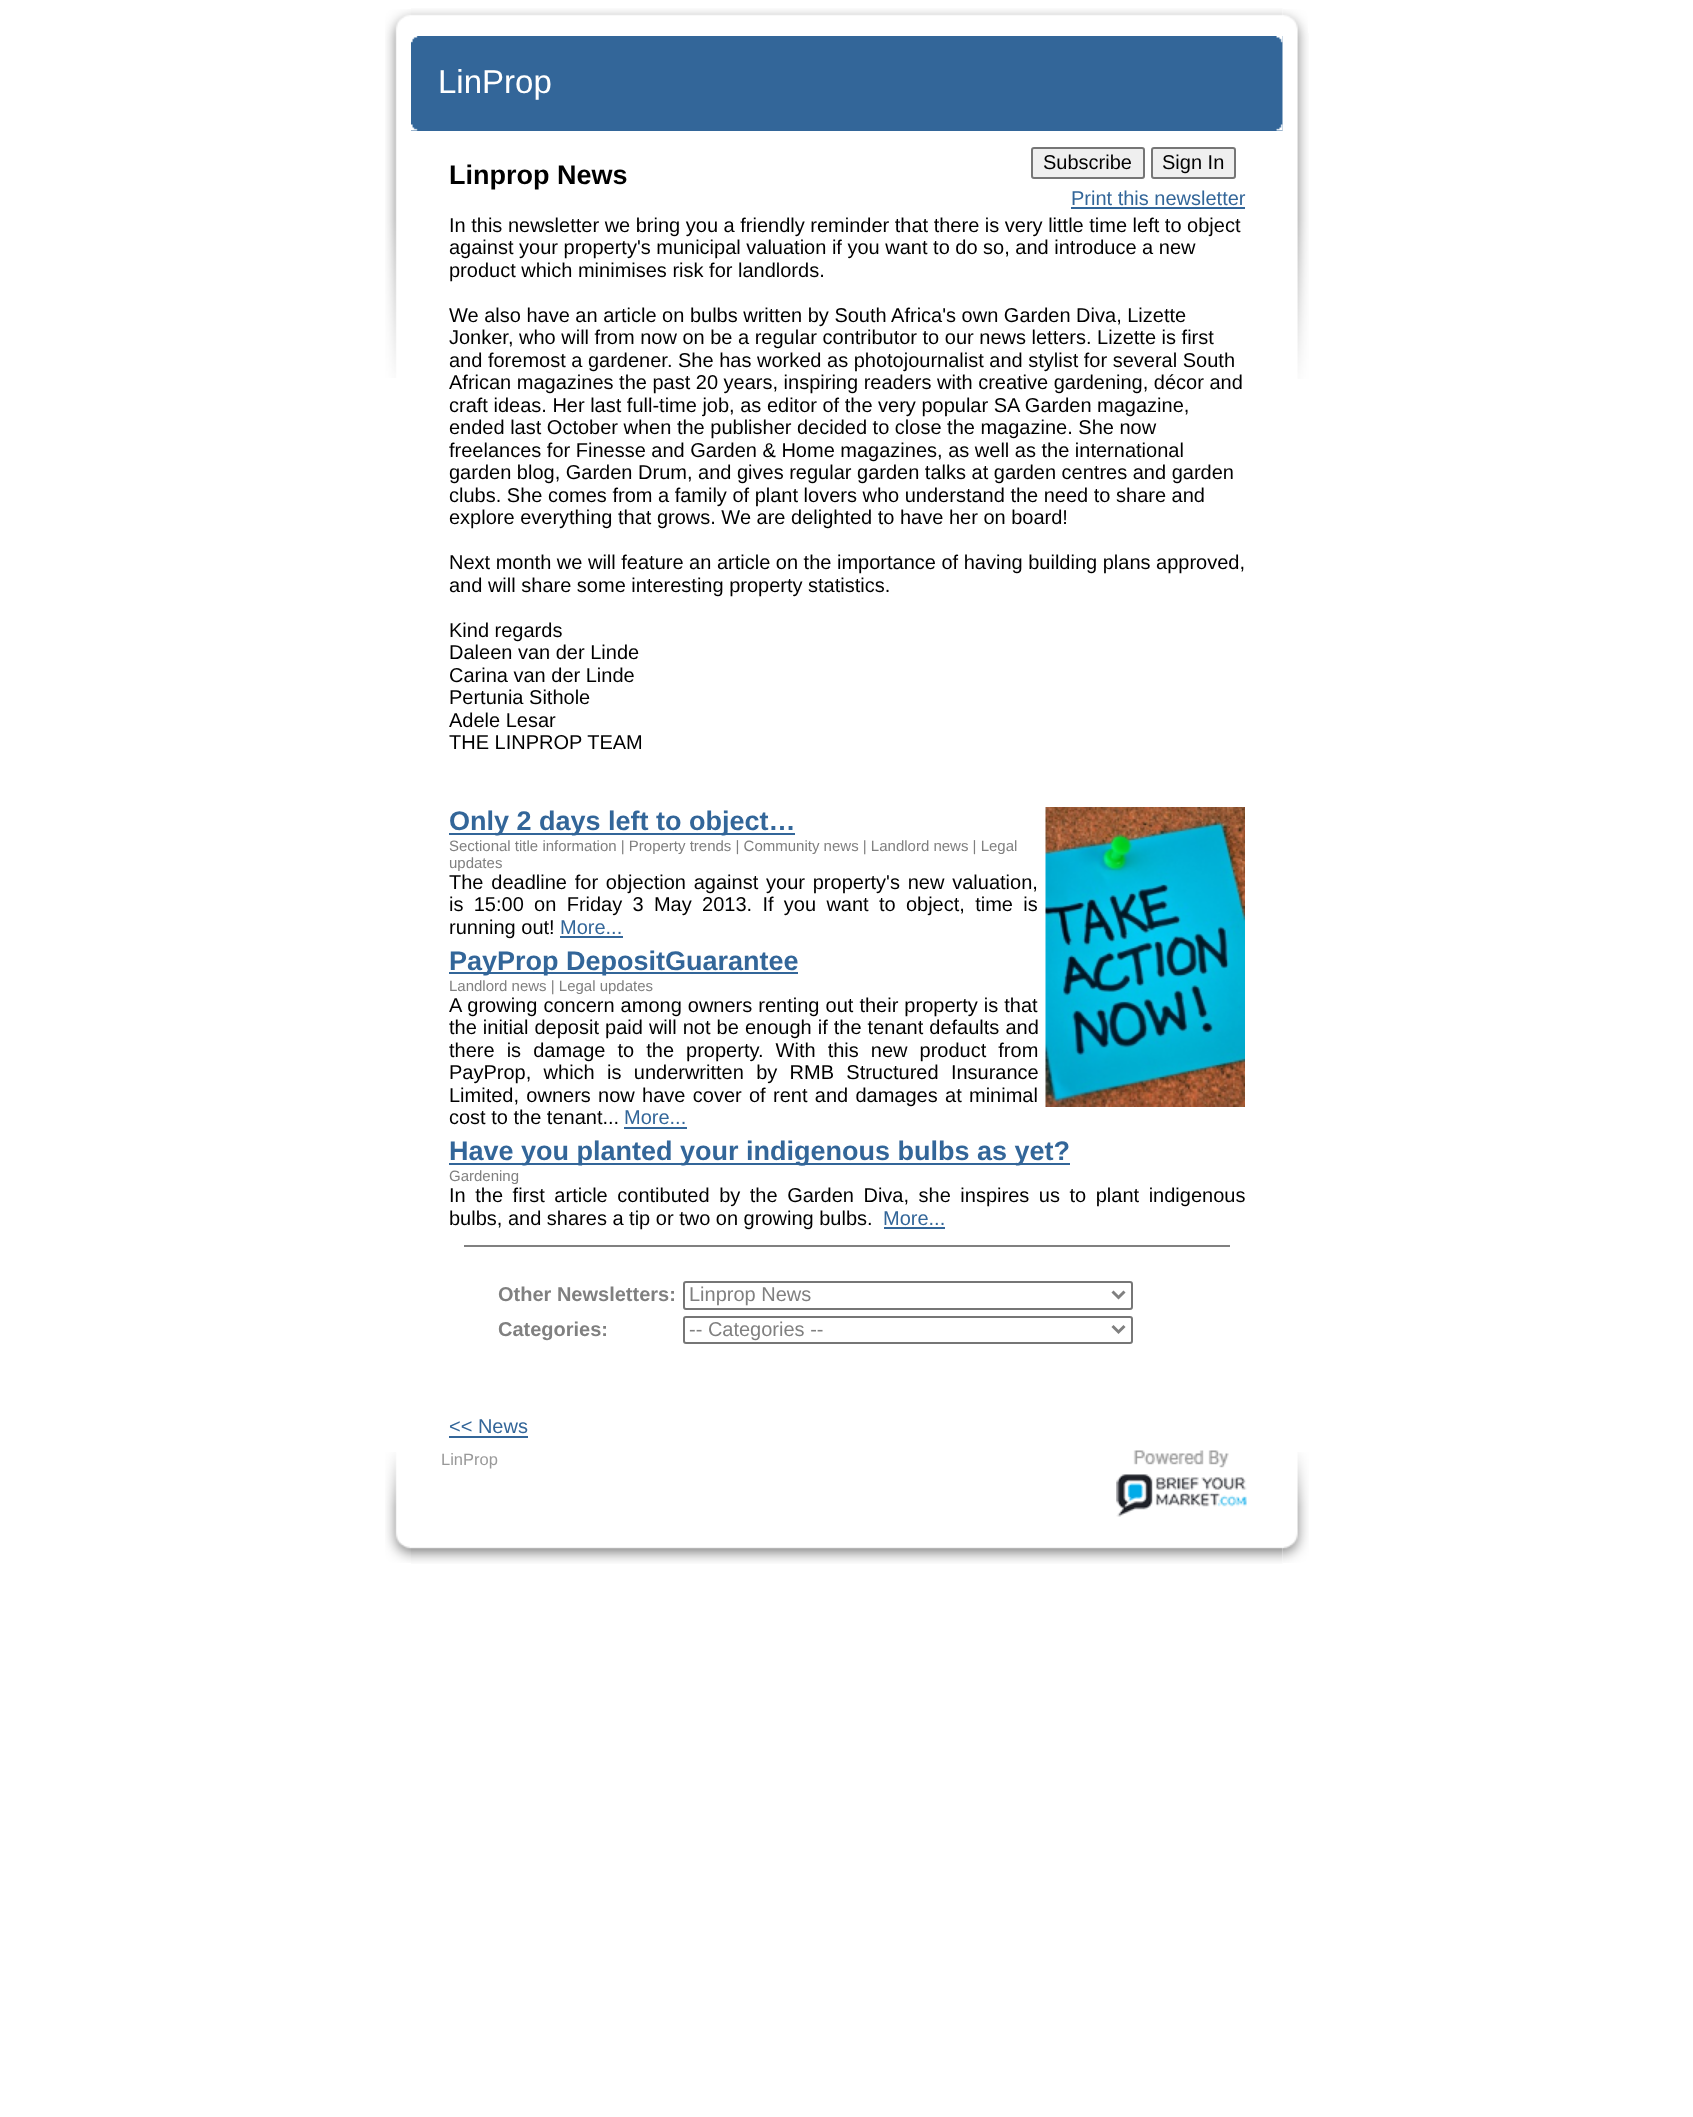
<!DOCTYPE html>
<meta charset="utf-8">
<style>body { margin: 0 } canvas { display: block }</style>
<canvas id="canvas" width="1693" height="2117"></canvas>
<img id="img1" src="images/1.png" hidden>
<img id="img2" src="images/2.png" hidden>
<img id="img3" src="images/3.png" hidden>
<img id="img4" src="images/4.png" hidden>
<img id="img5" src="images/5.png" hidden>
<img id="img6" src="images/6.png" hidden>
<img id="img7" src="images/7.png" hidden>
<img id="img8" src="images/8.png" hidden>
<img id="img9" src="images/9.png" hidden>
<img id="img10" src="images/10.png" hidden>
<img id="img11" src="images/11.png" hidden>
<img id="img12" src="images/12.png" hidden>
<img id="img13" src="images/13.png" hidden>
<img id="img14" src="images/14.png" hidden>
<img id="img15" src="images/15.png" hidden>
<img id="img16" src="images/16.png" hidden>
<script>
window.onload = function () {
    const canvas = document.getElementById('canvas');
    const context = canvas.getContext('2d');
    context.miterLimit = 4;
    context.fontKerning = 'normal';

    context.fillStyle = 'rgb(255, 255, 255)';
    context.fillRect(0, 0, 1693, 2117);
    context.drawImage(document.getElementById('img1'), 385, 9, 26, 24);
    context.drawImage(document.getElementById('img2'), 411, 8, 872, 8);
    context.drawImage(document.getElementById('img3'), 1282, 9, 26, 24);
    context.drawImage(document.getElementById('img4'), 385, 33, 12, 345);
    context.fillStyle = 'rgb(51, 102, 153)';
    context.fillRect(411, 36, 872, 95);
    context.drawImage(document.getElementById('img5'), 1282, 33, 27, 346);
    context.drawImage(document.getElementById('img6'), 411, 36, 7, 7);
    context.drawImage(document.getElementById('img7'), 1276, 36, 7, 7);
    context.drawImage(document.getElementById('img8'), 411, 124, 7, 7);
    context.drawImage(document.getElementById('img9'), 1276, 124, 7, 7);
    context.fillStyle = 'rgb(239, 239, 239)';
    context.beginPath();
    context.roundRect(1032, 148, 112, 30, 2);
    context.fill();
    context.strokeStyle = 'rgb(118, 118, 118)';
    context.lineWidth = 2;
    context.stroke();
    context.beginPath();
    context.roundRect(1152, 148, 83, 30, 2);
    context.fill();
    context.stroke();
    context.fillStyle = 'rgb(51, 102, 153)';
    context.fillRect(1071, 207, 174, 2);
    context.fillRect(449, 833, 346, 2);
    context.drawImage(document.getElementById('img10'), 1045, 807, 200, 300);
    context.fillRect(560, 936, 63, 2);
    context.fillRect(449, 972, 349, 2);
    context.fillRect(624, 1127, 63, 2);
    context.fillRect(449, 1163, 621, 2);
    context.fillRect(884, 1227, 61, 2);
    context.fillStyle = 'rgb(128, 128, 128)';
    context.fillRect(464, 1245, 766, 2);
    context.beginPath();
    context.roundRect(684, 1282, 448, 27, 2);
    context.stroke();
    context.beginPath();
    context.moveTo(1112.5, 1291.5);
    context.lineTo(1118.5, 1297.5);
    context.lineTo(1124.5, 1291.5);
    context.strokeStyle = 'rgb(128, 128, 128)';
    context.lineWidth = 3;
    context.stroke();
    context.beginPath();
    context.roundRect(684, 1317, 448, 26, 2);
    context.strokeStyle = 'rgb(118, 118, 118)';
    context.lineWidth = 2;
    context.stroke();
    context.beginPath();
    context.moveTo(1112.5, 1326);
    context.lineTo(1118.5, 1332);
    context.lineTo(1124.5, 1326);
    context.strokeStyle = 'rgb(128, 128, 128)';
    context.lineWidth = 3;
    context.stroke();
    context.fillStyle = 'rgb(51, 102, 153)';
    context.fillRect(449, 1436, 79, 2);
    context.drawImage(document.getElementById('img11'), 385, 1452, 12, 69);
    context.drawImage(document.getElementById('img12'), 1116, 1450, 131, 67);
    context.drawImage(document.getElementById('img13'), 1297, 1452, 12, 69);
    context.drawImage(document.getElementById('img14'), 385, 1521, 26, 42);
    context.drawImage(document.getElementById('img15'), 411, 1547, 872, 17);
    context.drawImage(document.getElementById('img16'), 1282, 1521, 27, 42);
    context.font = '33px Liberation Sans';
    context.fillStyle = 'rgb(255, 255, 255)';
    context.fillText('LinProp', 438, 93);
    context.font = 'bold 27px Liberation Sans';
    context.fillStyle = 'rgb(0, 0, 0)';
    context.fillText('Linprop News', 449, 184);
    context.font = '20px Liberation Sans';
    context.fillText('Subscribe', 1043, 169);
    context.fillText('Sign In', 1162, 169);
    context.fillStyle = 'rgb(51, 102, 153)';
    context.fillText('Print this newsletter', 1071, 205);
    context.fillStyle = 'rgb(0, 0, 0)';
    context.fillText('In this newsletter we bring you a friendly reminder that there is very little time left to object', 449, 232);
    context.fillText('against your property\'s municipal valuation if you want to do so, and introduce a new', 449, 254);
    context.fillText('product which minimises risk for landlords.', 449, 277);
    context.fillText('We also have an article on bulbs written by South Africa\'s own Garden Diva, Lizette', 449, 322);
    context.fillText('Jonker, who will from now on be a regular contributor to our news letters. Lizette is first', 449, 344);
    context.fillText('and foremost a gardener. She has worked as photojournalist and stylist for several South', 449, 367);
    context.fillText('African magazines the past 20 years, inspiring readers with creative gardening, décor and', 449, 389);
    context.fillText('craft ideas. Her last full-time job, as editor of the very popular SA Garden magazine,', 449, 412);
    context.fillText('ended last October when the publisher decided to close the magazine. She now', 449, 434);
    context.fillText('freelances for Finesse and Garden & Home magazines, as well as the international', 449, 457);
    context.fillText('garden blog, Garden Drum, and gives regular garden talks at garden centres and garden', 449, 479);
    context.fillText('clubs. She comes from a family of plant lovers who understand the need to share and', 449, 502);
    context.fillText('explore everything that grows. We are delighted to have her on board!', 449, 524);
    context.fillText('Next month we will feature an article on the importance of having building plans approved,', 449, 569);
    context.fillText('and will share some interesting property statistics.', 449, 592);
    context.fillText('Kind regards', 449, 637);
    context.fillText('Daleen van der Linde', 449, 659);
    context.fillText('Carina van der Linde', 449, 682);
    context.fillText('Pertunia Sithole', 449, 704);
    context.fillText('Adele Lesar', 449, 727);
    context.fillText('THE LINPROP TEAM', 449, 749);
    context.font = 'bold 27px Liberation Sans';
    context.fillStyle = 'rgb(51, 102, 153)';
    context.fillText('Only 2 days left to object…', 449, 830);
    context.font = '15px Liberation Sans';
    context.fillStyle = 'rgb(128, 128, 128)';
    context.fillText('Sectional title information | Property trends | Community news | Landlord news | Legal', 449, 851);
    context.fillText('updates', 449, 868);
    context.wordSpacing = '2.25px';
    context.font = '20px Liberation Sans';
    context.fillStyle = 'rgb(0, 0, 0)';
    context.fillText('The deadline for objection against your property\'s new valuation,', 449, 889);
    context.wordSpacing = '4.75px';
    context.fillText('is 15:00 on Friday 3 May 2013. If you want to object, time is', 449, 911);
    context.wordSpacing = '0px';
    context.fillText('running out!', 449, 934);
    context.fillStyle = 'rgb(51, 102, 153)';
    context.fillText('More...', 560, 934);
    context.font = 'bold 27px Liberation Sans';
    context.fillText('PayProp DepositGuarantee', 449, 970);
    context.font = '15px Liberation Sans';
    context.fillStyle = 'rgb(128, 128, 128)';
    context.fillText('Landlord news | Legal updates', 449, 991);
    context.wordSpacing = '0.5px';
    context.font = '20px Liberation Sans';
    context.fillStyle = 'rgb(0, 0, 0)';
    context.fillText('A growing concern among owners renting out their property is that', 449, 1012);
    context.fillText('the initial deposit paid will not be enough if the tenant defaults and', 449, 1034);
    context.wordSpacing = '6.5px';
    context.fillText('there is damage to the property. With this new product from', 449, 1057);
    context.wordSpacing = '6.75px';
    context.fillText('PayProp, which is underwritten by RMB Structured Insurance', 449, 1079);
    context.wordSpacing = '1.75px';
    context.fillText('Limited, owners now have cover of rent and damages at minimal', 449, 1102);
    context.wordSpacing = '0px';
    context.fillText('cost to the tenant...', 449, 1124);
    context.fillStyle = 'rgb(51, 102, 153)';
    context.fillText('More...', 624, 1124);
    context.font = 'bold 27px Liberation Sans';
    context.fillText('Have you planted your indigenous bulbs as yet?', 449, 1160);
    context.font = '15px Liberation Sans';
    context.fillStyle = 'rgb(128, 128, 128)';
    context.fillText('Gardening', 449, 1181);
    context.wordSpacing = '4px';
    context.font = '20px Liberation Sans';
    context.fillStyle = 'rgb(0, 0, 0)';
    context.fillText('In the first article contibuted by the Garden Diva, she inspires us to plant indigenous', 449, 1202);
    context.wordSpacing = '0px';
    context.fillText('bulbs, and shares a tip or two on growing bulbs.', 449, 1225);
    context.fillStyle = 'rgb(51, 102, 153)';
    context.fillText('More...', 883, 1225);
    context.font = 'bold 20px Liberation Sans';
    context.fillStyle = 'rgb(128, 128, 128)';
    context.fillText('Other Newsletters:', 498, 1301);
    context.font = '20px Liberation Sans';
    context.fillText('Linprop News', 689, 1301);
    context.font = 'bold 20px Liberation Sans';
    context.fillText('Categories:', 498, 1336);
    context.font = '20px Liberation Sans';
    context.fillText('-- Categories --', 689, 1336);
    context.fillStyle = 'rgb(51, 102, 153)';
    context.fillText('<< News', 449, 1433);
    context.font = '16.5px Liberation Sans';
    context.fillStyle = 'rgb(153, 153, 153)';
    context.fillText('LinProp', 441, 1465);
};
</script>
